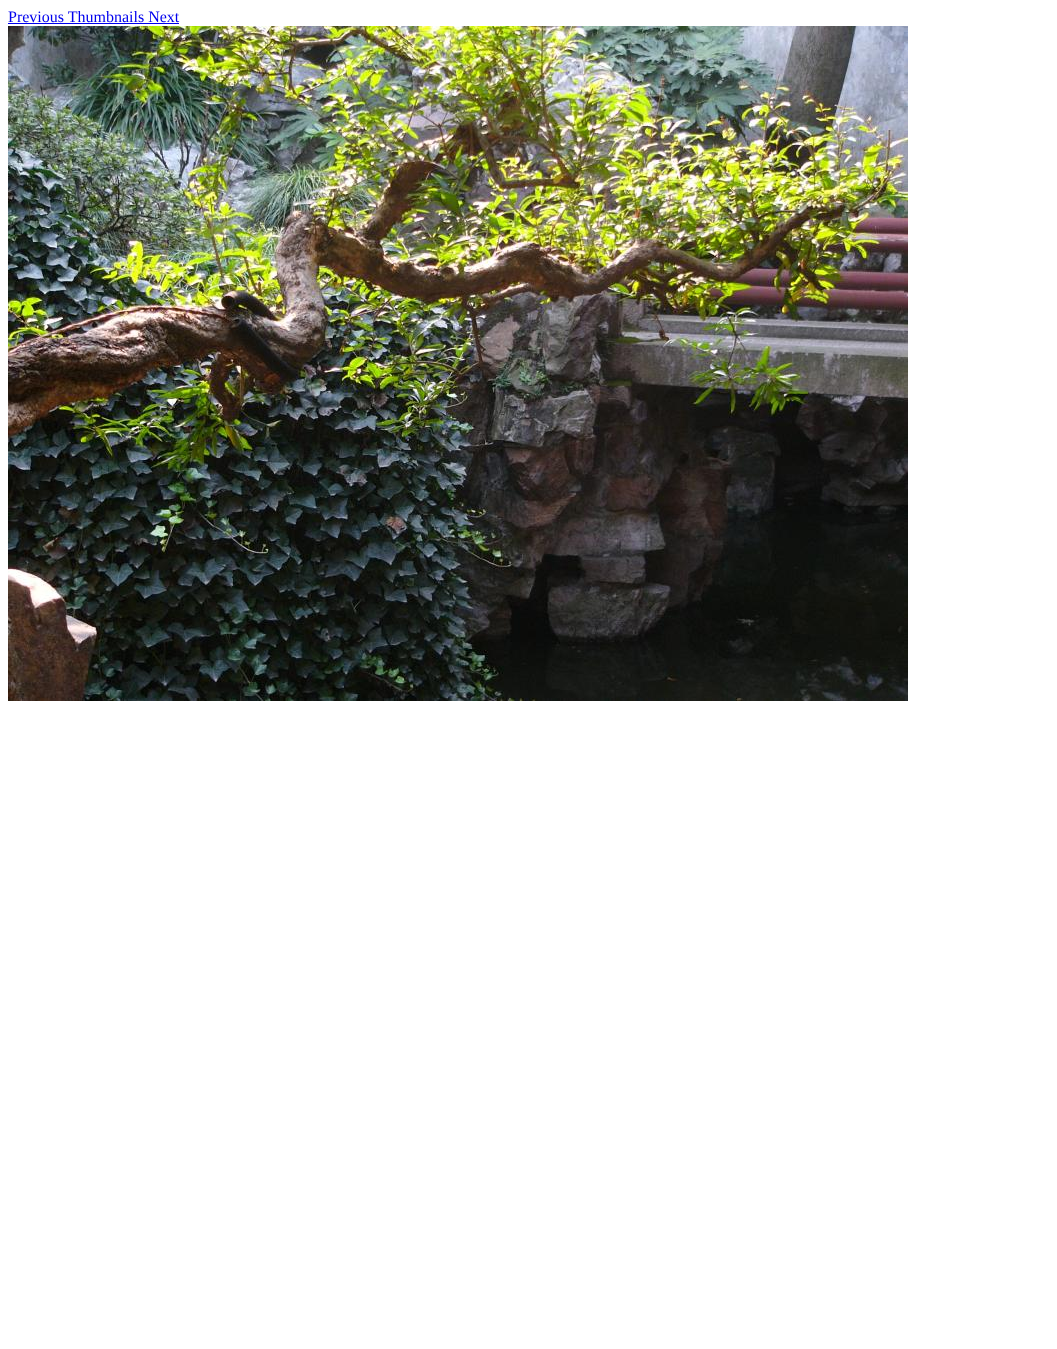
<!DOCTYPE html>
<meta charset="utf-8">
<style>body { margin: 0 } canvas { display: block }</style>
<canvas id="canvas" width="1057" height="1349"></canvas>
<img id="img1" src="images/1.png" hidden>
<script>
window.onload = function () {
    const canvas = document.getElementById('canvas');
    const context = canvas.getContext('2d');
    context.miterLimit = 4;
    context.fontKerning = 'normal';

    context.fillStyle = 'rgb(255, 255, 255)';
    context.fillRect(0, 0, 1057, 1349);
    context.fillStyle = 'rgb(0, 0, 238)';
    context.fillRect(8, 23, 171, 1);
    context.drawImage(document.getElementById('img1'), 8, 26, 900, 675);
    context.font = '16px Liberation Serif';
    context.fillText('Previous Thumbnails Next', 8, 22);
};
</script>
